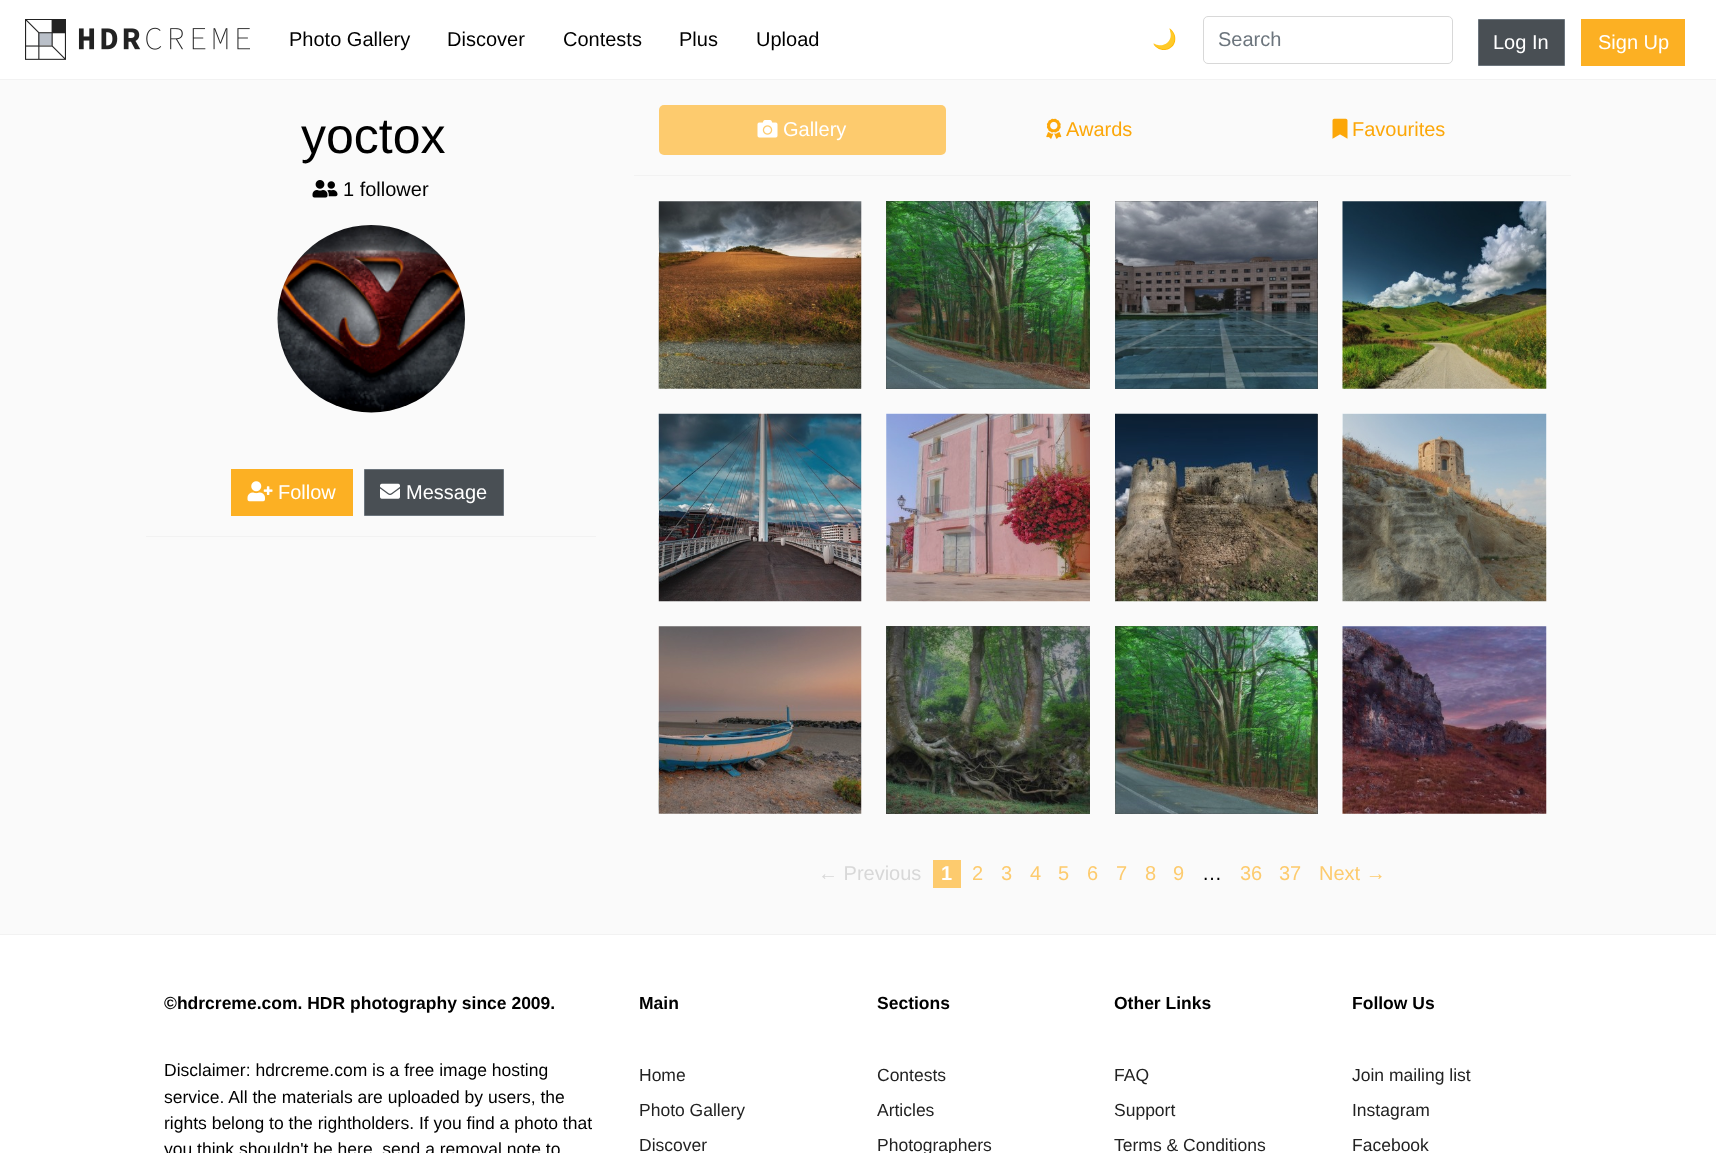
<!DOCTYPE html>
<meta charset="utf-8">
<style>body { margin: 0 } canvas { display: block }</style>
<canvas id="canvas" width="1716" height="1153"></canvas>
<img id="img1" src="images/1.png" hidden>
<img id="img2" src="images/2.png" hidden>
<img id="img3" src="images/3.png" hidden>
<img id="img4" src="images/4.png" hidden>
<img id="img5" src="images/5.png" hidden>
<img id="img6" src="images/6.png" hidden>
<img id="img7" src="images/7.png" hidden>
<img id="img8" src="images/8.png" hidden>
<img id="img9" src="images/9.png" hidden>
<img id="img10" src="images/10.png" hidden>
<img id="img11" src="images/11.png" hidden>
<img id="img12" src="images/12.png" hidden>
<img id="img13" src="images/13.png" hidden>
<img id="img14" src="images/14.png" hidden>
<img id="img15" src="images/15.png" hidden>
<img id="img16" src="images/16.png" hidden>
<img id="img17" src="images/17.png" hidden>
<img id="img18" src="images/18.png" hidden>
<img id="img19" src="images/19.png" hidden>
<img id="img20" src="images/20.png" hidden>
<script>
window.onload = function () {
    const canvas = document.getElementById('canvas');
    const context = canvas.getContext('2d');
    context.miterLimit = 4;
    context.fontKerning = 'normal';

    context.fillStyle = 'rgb(250, 250, 250)';
    context.fillRect(0, 0, 1716, 1153);
    context.fillStyle = 'rgb(255, 255, 255)';
    context.fillRect(0, 0, 1716, 79);
    context.fillStyle = 'rgb(242, 242, 242)';
    context.fillRect(0, 79, 1716, 1);
    context.drawImage(document.getElementById('img1'), 25, 19, 225, 41);
    context.beginPath();
    context.roundRect(1203.5, 16.5, 249, 47, 4.5);
    context.strokeStyle = 'rgb(216, 216, 216)';
    context.stroke();
    context.fillStyle = 'rgb(73, 79, 84)';
    context.beginPath();
    context.rect(1478.5, 19.5, 86, 46);
    context.fill();
    context.strokeStyle = 'rgb(108, 117, 125)';
    context.stroke();
    context.fillStyle = 'rgb(252, 176, 35)';
    context.fillRect(1581, 19, 104, 47);
    context.drawImage(document.getElementById('img2'), 312, 180, 26, 18);
    context.drawImage(document.getElementById('img3'), 277, 225, 188, 188);
    context.fillRect(231, 469, 122, 47);
    context.drawImage(document.getElementById('img4'), 247, 481, 26, 21);
    context.fillStyle = 'rgb(73, 79, 84)';
    context.beginPath();
    context.rect(364.5, 469.5, 139, 46);
    context.fill();
    context.stroke();
    context.drawImage(document.getElementById('img5'), 380, 483, 20, 16);
    context.fillStyle = 'rgb(242, 242, 242)';
    context.fillRect(146, 536, 450, 1);
    context.fillStyle = 'rgb(253, 203, 110)';
    context.beginPath();
    context.roundRect(659, 105, 287, 50, 5);
    context.fill();
    context.drawImage(document.getElementById('img6'), 757, 120, 21, 18);
    context.drawImage(document.getElementById('img7'), 1046, 118, 16, 21);
    context.drawImage(document.getElementById('img8'), 1332, 118, 16, 21);
    context.fillStyle = 'rgb(242, 242, 242)';
    context.fillRect(634, 175, 937, 1);
    context.drawImage(document.getElementById('img9'), 658, 201, 204, 188);
    context.fillStyle = 'rgb(74, 74, 74)';
    context.fillRect(886, 201, 204, 188);
    context.drawImage(document.getElementById('img10'), 886, 201, 204, 188);
    context.fillRect(1115, 201, 203, 188);
    context.drawImage(document.getElementById('img11'), 1115, 201, 203, 188);
    context.drawImage(document.getElementById('img12'), 1342, 201, 205, 188);
    context.drawImage(document.getElementById('img13'), 658, 413, 204, 189);
    context.drawImage(document.getElementById('img14'), 886, 413, 204, 189);
    context.fillRect(1317, 414, 1, 187);
    context.drawImage(document.getElementById('img15'), 1115, 413, 203, 189);
    context.drawImage(document.getElementById('img16'), 1342, 413, 205, 189);
    context.drawImage(document.getElementById('img17'), 658, 626, 204, 188);
    context.fillRect(886, 626, 204, 188);
    context.drawImage(document.getElementById('img18'), 886, 626, 204, 188);
    context.fillRect(1115, 626, 203, 188);
    context.drawImage(document.getElementById('img19'), 1115, 626, 203, 188);
    context.drawImage(document.getElementById('img20'), 1342, 626, 205, 188);
    context.fillStyle = 'rgb(253, 203, 110)';
    context.fillRect(933, 860, 28, 28);
    context.fillStyle = 'rgb(255, 255, 255)';
    context.fillRect(0, 935, 1716, 218);
    context.fillStyle = 'rgb(242, 242, 242)';
    context.fillRect(0, 934, 1716, 1);
    context.font = '20px Liberation Sans';
    context.fillStyle = 'rgb(0, 0, 0)';
    context.fillText('Photo Gallery', 289, 46);
    context.fillText('Discover', 447, 46);
    context.fillText('Contests', 563, 46);
    context.fillText('Plus', 679, 46);
    context.fillText('Upload', 756, 46);
    context.font = '20px Noto Color Emoji';
    context.fillStyle = 'rgb(252, 167, 9)';
    context.fillText('🌙', 1152, 46);
    context.font = '20px Liberation Sans';
    context.fillStyle = 'rgb(108, 117, 125)';
    context.fillText('Search', 1218, 46);
    context.fillStyle = 'rgb(255, 255, 255)';
    context.fillText('Log In', 1493, 49);
    context.fillText('Sign Up', 1598, 49);
    context.font = '50px Liberation Sans';
    context.fillStyle = 'rgb(0, 0, 0)';
    context.fillText('yoctox', 301, 153);
    context.font = '20px Liberation Sans';
    context.fillText('1 follower', 343, 196);
    context.fillStyle = 'rgb(255, 255, 255)';
    context.fillText('Follow', 278, 499);
    context.fillText('Message', 406, 499);
    context.fillText('Gallery', 783, 136);
    context.fillStyle = 'rgb(252, 167, 9)';
    context.fillText('Awards', 1066, 136);
    context.fillText('Favourites', 1352, 136);
    context.fillStyle = 'rgb(216, 216, 216)';
    context.fillText('← Previous', 818, 880);
    context.font = 'bold 20px Liberation Sans';
    context.fillStyle = 'rgb(255, 255, 255)';
    context.fillText('1', 941, 880);
    context.font = '20px Liberation Sans';
    context.fillStyle = 'rgb(253, 203, 110)';
    context.fillText('2', 972, 880);
    context.fillText('3', 1001, 880);
    context.fillText('4', 1030, 880);
    context.fillText('5', 1058, 880);
    context.fillText('6', 1087, 880);
    context.fillText('7', 1116, 880);
    context.fillText('8', 1145, 880);
    context.fillText('9', 1173, 880);
    context.fillStyle = 'rgb(0, 0, 0)';
    context.fillText('…', 1202, 880);
    context.fillStyle = 'rgb(253, 203, 110)';
    context.fillText('36', 1240, 880);
    context.fillText('37', 1279, 880);
    context.fillText('Next →', 1319, 880);
    context.font = 'bold 17.5px Liberation Sans';
    context.fillStyle = 'rgb(0, 0, 0)';
    context.fillText('©hdrcreme.com. HDR photography since 2009.', 164, 1009);
    context.font = '17.5px Liberation Sans';
    context.fillText('Disclaimer: hdrcreme.com is a free image hosting', 164, 1076);
    context.fillText('service. All the materials are uploaded by users, the', 164, 1103);
    context.fillText('rights belong to the rightholders. If you find a photo that', 164, 1129);
    context.fillText('you think shouldn\'t be here, send a removal note to', 164, 1155);
    context.font = 'bold 17.5px Liberation Sans';
    context.fillText('Main', 639, 1009);
    context.font = '17.5px Liberation Sans';
    context.fillStyle = 'rgb(34, 34, 34)';
    context.fillText('Home', 639, 1081);
    context.fillText('Photo Gallery', 639, 1116);
    context.fillText('Discover', 639, 1151);
    context.font = 'bold 17.5px Liberation Sans';
    context.fillStyle = 'rgb(0, 0, 0)';
    context.fillText('Sections', 877, 1009);
    context.font = '17.5px Liberation Sans';
    context.fillStyle = 'rgb(34, 34, 34)';
    context.fillText('Contests', 877, 1081);
    context.fillText('Articles', 877, 1116);
    context.fillText('Photographers', 877, 1151);
    context.font = 'bold 17.5px Liberation Sans';
    context.fillStyle = 'rgb(0, 0, 0)';
    context.fillText('Other Links', 1114, 1009);
    context.font = '17.5px Liberation Sans';
    context.fillStyle = 'rgb(34, 34, 34)';
    context.fillText('FAQ', 1114, 1081);
    context.fillText('Support', 1114, 1116);
    context.fillText('Terms & Conditions', 1114, 1151);
    context.font = 'bold 17.5px Liberation Sans';
    context.fillStyle = 'rgb(0, 0, 0)';
    context.fillText('Follow Us', 1352, 1009);
    context.font = '17.5px Liberation Sans';
    context.fillStyle = 'rgb(34, 34, 34)';
    context.fillText('Join mailing list', 1352, 1081);
    context.fillText('Instagram', 1352, 1116);
    context.fillText('Facebook', 1352, 1151);
};
</script>
